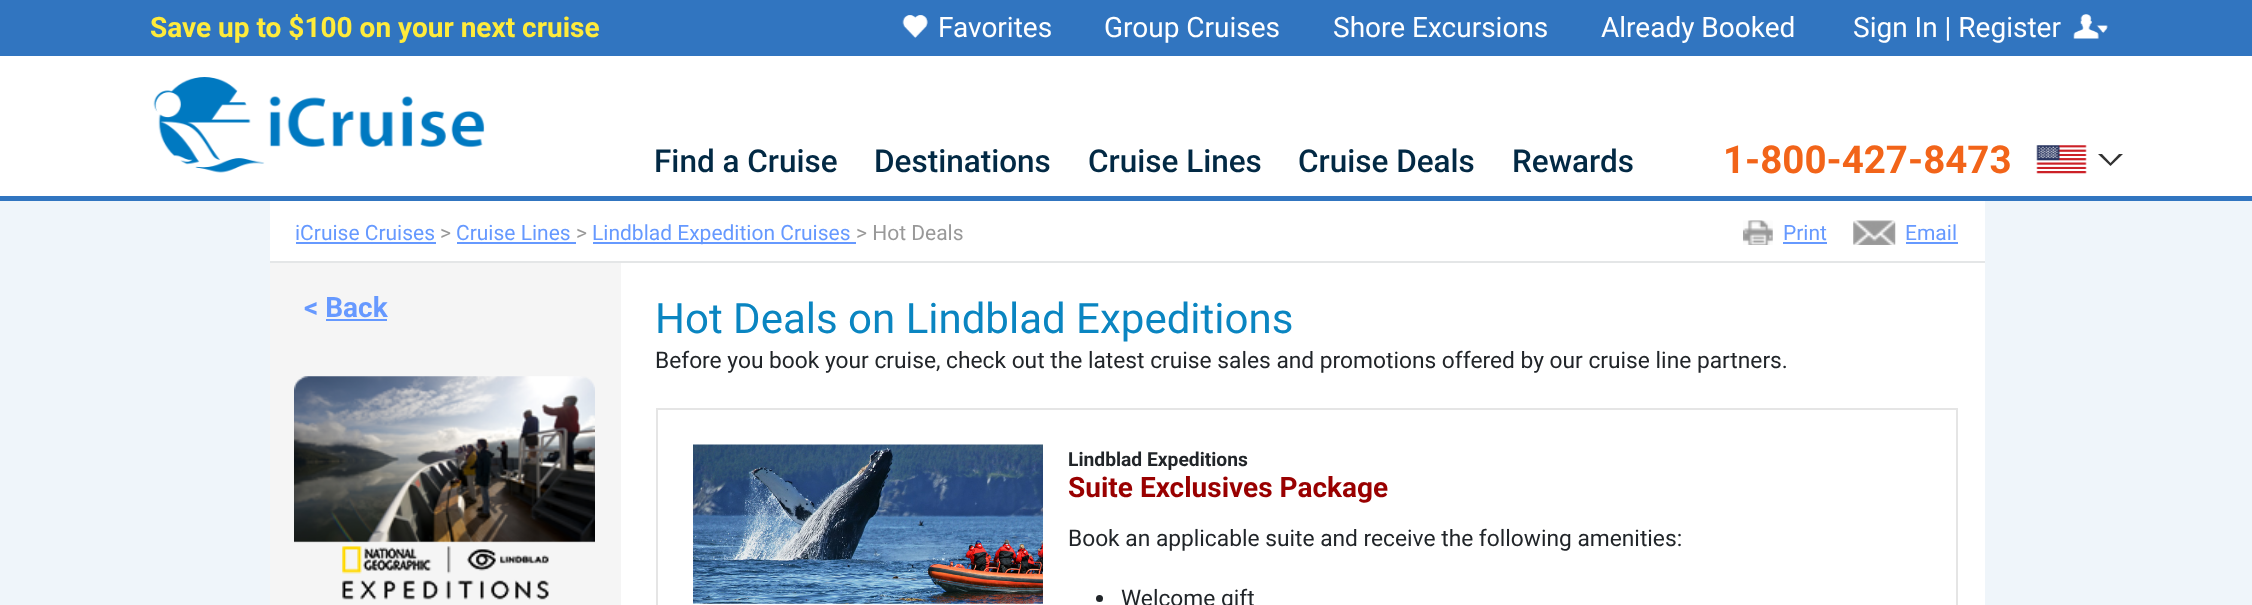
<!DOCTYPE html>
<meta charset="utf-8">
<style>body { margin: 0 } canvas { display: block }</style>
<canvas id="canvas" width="2252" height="605"></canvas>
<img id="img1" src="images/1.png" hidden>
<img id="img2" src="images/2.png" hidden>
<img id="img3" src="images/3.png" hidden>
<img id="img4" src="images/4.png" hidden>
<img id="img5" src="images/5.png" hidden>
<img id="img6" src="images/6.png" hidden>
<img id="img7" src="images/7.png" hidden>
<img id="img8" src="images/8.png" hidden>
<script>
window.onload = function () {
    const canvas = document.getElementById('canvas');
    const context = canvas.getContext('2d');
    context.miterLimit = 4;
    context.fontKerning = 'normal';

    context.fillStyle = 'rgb(239, 245, 250)';
    context.fillRect(0, 0, 2252, 605);
    context.fillStyle = 'rgb(49, 117, 192)';
    context.fillRect(0, 0, 2252, 56);
    context.drawImage(document.getElementById('img1'), 902, 15, 26, 23);
    context.drawImage(document.getElementById('img2'), 2073, 14, 35, 25);
    context.fillStyle = 'rgb(255, 255, 255)';
    context.fillRect(0, 56, 2252, 140);
    context.fillStyle = 'rgb(49, 117, 192)';
    context.fillRect(0, 196, 2252, 5);
    context.drawImage(document.getElementById('img3'), 153, 77, 332, 96);
    context.drawImage(document.getElementById('img4'), 2036, 145, 51, 29);
    context.fillStyle = 'rgb(51, 51, 51)';
    context.beginPath();
    context.moveTo(2098, 154);
    context.lineTo(2123, 154);
    context.lineTo(2110.5, 166);
    context.closePath();
    context.fill();
    context.fillStyle = 'rgb(255, 255, 255)';
    context.beginPath();
    context.moveTo(2102, 154);
    context.lineTo(2119, 154);
    context.lineTo(2110.5, 163);
    context.closePath();
    context.fill();
    context.fillRect(621, 263, 1364, 342);
    context.fillStyle = 'rgb(245, 245, 245)';
    context.fillRect(270, 263, 351, 342);
    context.fillStyle = 'rgb(255, 255, 255)';
    context.fillRect(270, 201, 1715, 60);
    context.fillStyle = 'rgb(228, 230, 231)';
    context.fillRect(270, 261, 1715, 2);
    context.fillStyle = 'rgb(102, 153, 255)';
    context.fillRect(296, 242, 140, 2);
    context.fillRect(457, 242, 119, 2);
    context.fillRect(593, 242, 263, 2);
    context.drawImage(document.getElementById('img5'), 1743, 220, 30, 25);
    context.fillRect(1783, 242, 44, 2);
    context.drawImage(document.getElementById('img6'), 1853, 220, 43, 25);
    context.fillRect(1906, 242, 52, 2);
    context.fillStyle = 'rgb(101, 153, 255)';
    context.fillRect(326, 319, 61, 2);
    context.drawImage(document.getElementById('img7'), 294, 376, 301, 224);
    context.strokeStyle = 'rgb(229, 229, 229)';
    context.lineWidth = 2;
    context.strokeRect(657, 409, 1300, 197);
    context.drawImage(document.getElementById('img8'), 693, 444, 350, 160);
    context.fillStyle = 'rgb(33, 37, 41)';
    context.beginPath();
    context.arc(1099.5, 598.5, 3.5, 0, 2 * Math.PI);
    context.fill();
    context.font = 'bold 28px Roboto';
    context.fillStyle = 'rgb(255, 235, 59)';
    context.fillText('Save up to $100 on your next cruise', 150, 37);
    context.font = '28px Roboto';
    context.fillStyle = 'rgb(255, 255, 255)';
    context.fillText('Favorites', 938, 37);
    context.fillText('Group Cruises', 1104, 37);
    context.fillText('Shore Excursions', 1333, 37);
    context.fillText('Already Booked', 1601, 37);
    context.fillText('Sign In | Register', 1853, 37);
    context.font = '500 31.5px Roboto';
    context.fillStyle = 'rgb(2, 41, 68)';
    context.fillText('Find a Cruise', 654, 172);
    context.fillText('Destinations', 874, 172);
    context.fillText('Cruise Lines', 1088, 172);
    context.fillText('Cruise Deals', 1298, 172);
    context.fillText('Rewards', 1512, 172);
    context.font = 'bold 38.5px Roboto';
    context.fillStyle = 'rgb(242, 100, 25)';
    context.fillText('1-800-427-8473', 1723, 173);
    context.font = '21px Roboto';
    context.fillStyle = 'rgb(102, 153, 255)';
    context.fillText('iCruise Cruises', 295, 240);
    context.fillStyle = 'rgb(153, 153, 153)';
    context.fillText('>', 440, 240);
    context.fillStyle = 'rgb(102, 153, 255)';
    context.fillText('Cruise Lines', 456, 240);
    context.fillStyle = 'rgb(153, 153, 153)';
    context.fillText('>', 576, 240);
    context.fillStyle = 'rgb(102, 153, 255)';
    context.fillText('Lindblad Expedition Cruises', 592, 240);
    context.fillStyle = 'rgb(153, 153, 153)';
    context.fillText('> Hot Deals', 856, 240);
    context.fillStyle = 'rgb(102, 153, 255)';
    context.fillText('Print', 1783, 240);
    context.fillText('Email', 1905, 240);
    context.font = 'bold 28px Roboto';
    context.fillText('< Back', 304, 317);
    context.font = '42px Roboto';
    context.fillStyle = 'rgb(10, 133, 193)';
    context.fillText('Hot Deals on Lindblad Expeditions', 655, 333);
    context.font = '22.75px Roboto';
    context.fillStyle = 'rgb(33, 37, 41)';
    context.fillText('Before you book your cruise, check out the latest cruise sales and promotions offered by our cruise line partners.', 655, 368);
    context.font = 'bold 19.25px Roboto';
    context.fillText('Lindblad Expeditions', 1068, 466);
    context.font = 'bold 28px Roboto';
    context.fillStyle = 'rgb(153, 0, 0)';
    context.fillText('Suite Exclusives Package', 1068, 497);
    context.font = '22.75px Roboto';
    context.fillStyle = 'rgb(33, 37, 41)';
    context.fillText('Book an applicable suite and receive the following amenities:', 1068, 546);
    context.fillText('Welcome gift', 1121, 606);
};
</script>
